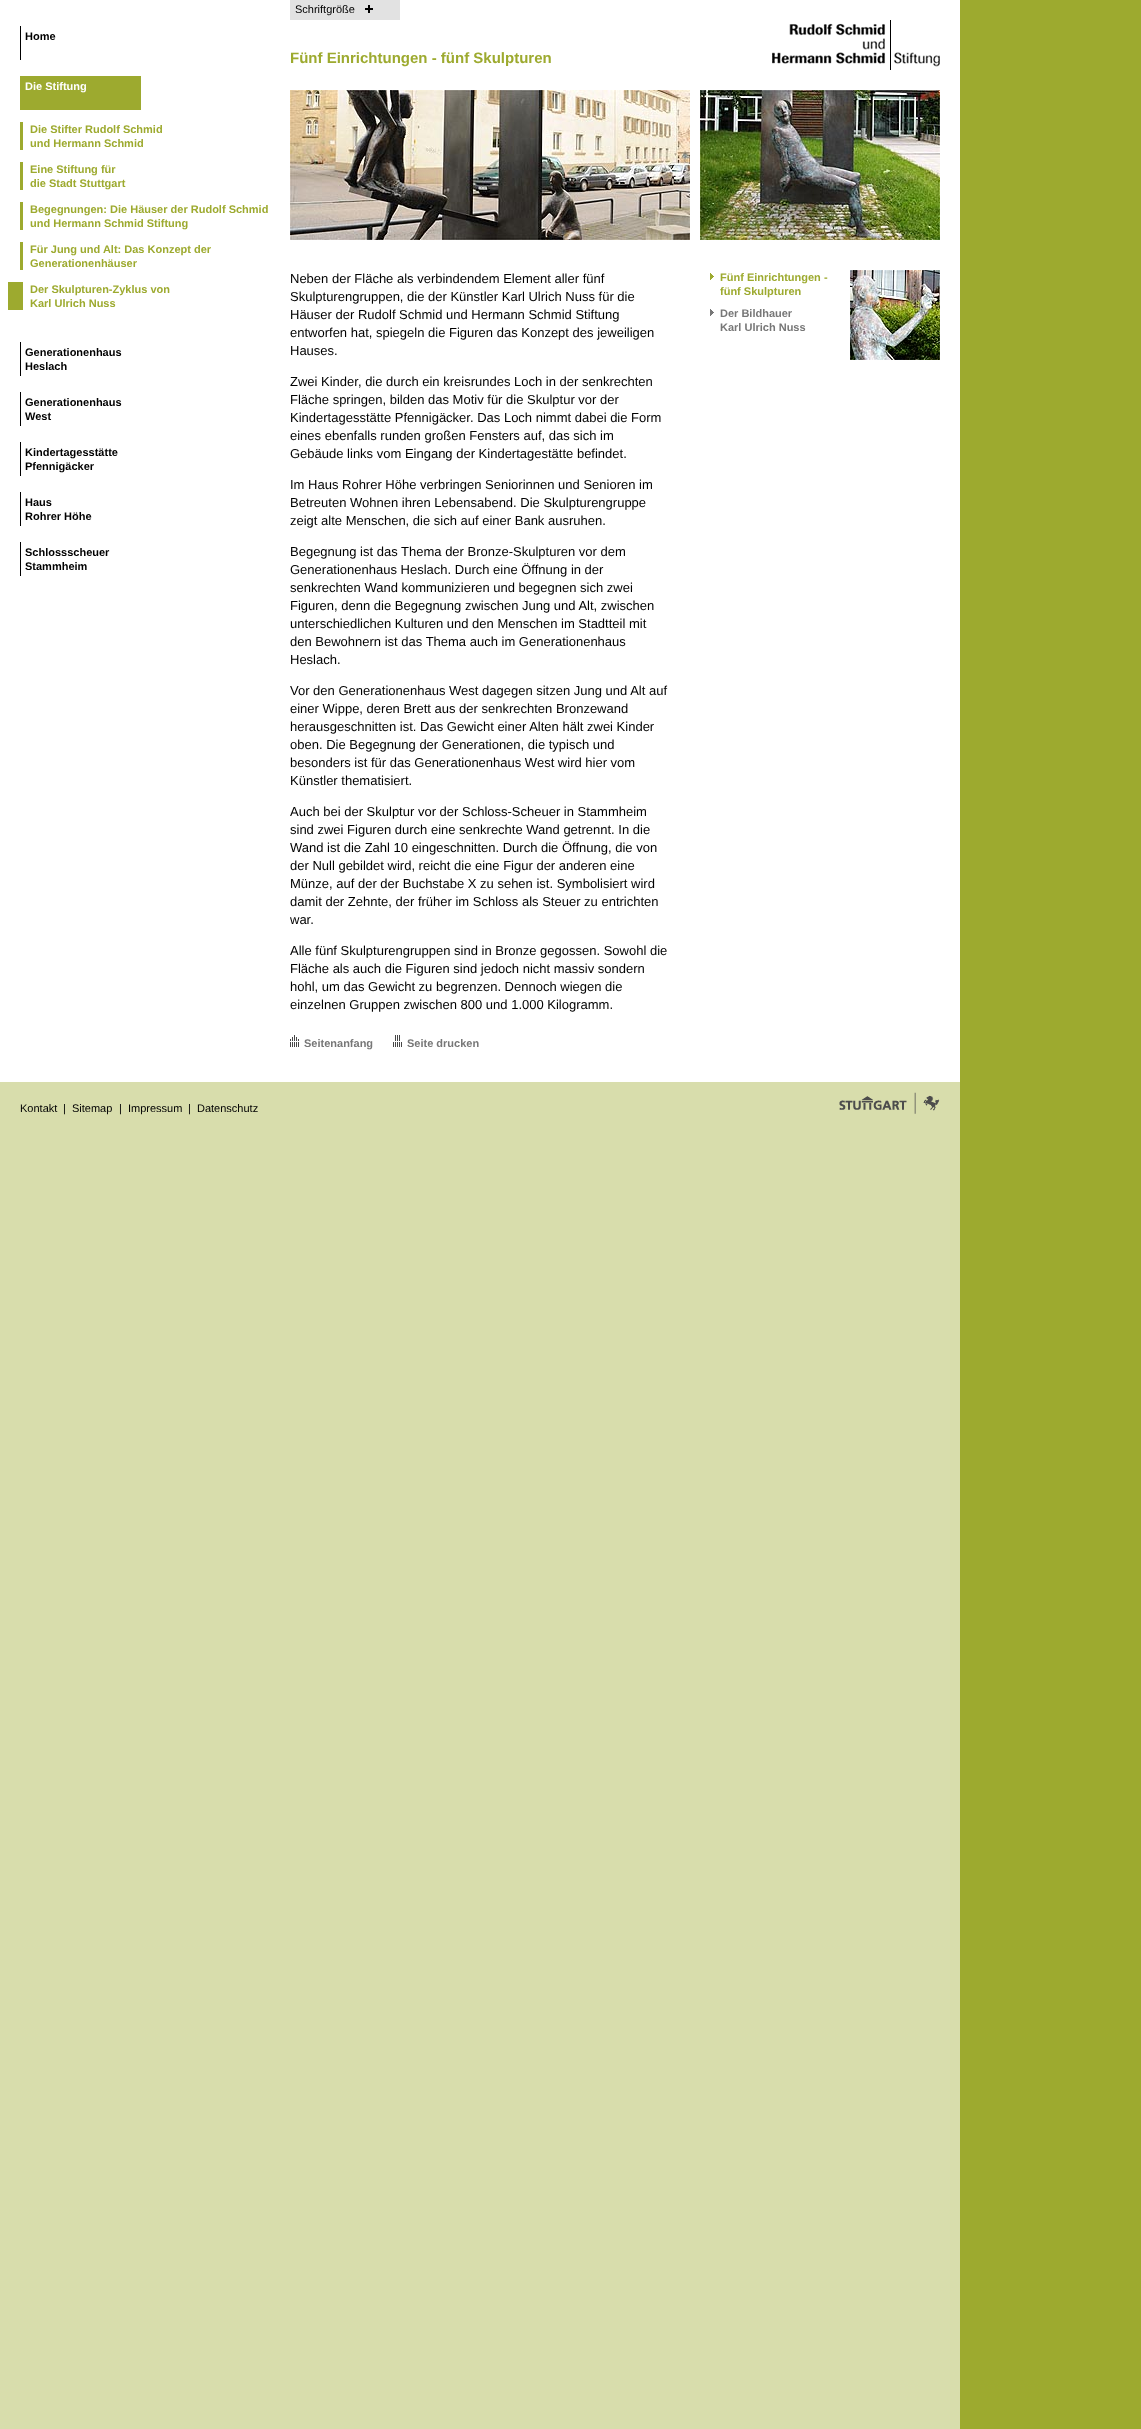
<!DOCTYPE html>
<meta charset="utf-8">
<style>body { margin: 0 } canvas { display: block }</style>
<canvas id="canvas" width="1141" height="2429"></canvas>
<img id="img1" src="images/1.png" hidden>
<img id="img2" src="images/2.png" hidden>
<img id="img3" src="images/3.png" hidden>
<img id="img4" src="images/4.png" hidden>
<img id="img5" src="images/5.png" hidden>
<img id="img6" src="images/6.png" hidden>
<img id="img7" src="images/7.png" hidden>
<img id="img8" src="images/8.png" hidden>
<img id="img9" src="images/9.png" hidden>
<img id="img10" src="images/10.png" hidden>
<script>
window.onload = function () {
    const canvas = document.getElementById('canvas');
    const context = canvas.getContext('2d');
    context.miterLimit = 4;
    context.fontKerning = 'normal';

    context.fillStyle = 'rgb(157, 170, 47)';
    context.fillRect(0, 0, 1141, 2429);
    context.fillStyle = 'rgb(216, 221, 172)';
    context.fillRect(0, 1082, 960, 1347);
    context.fillStyle = 'rgb(255, 255, 255)';
    context.fillRect(0, 0, 960, 1082);
    context.fillStyle = 'rgb(0, 0, 0)';
    context.fillRect(20, 26, 1, 34);
    context.fillStyle = 'rgb(157, 170, 47)';
    context.fillRect(20, 76, 121, 34);
    context.fillRect(20, 122, 3, 28);
    context.fillRect(20, 162, 3, 28);
    context.fillRect(20, 202, 3, 28);
    context.fillRect(20, 242, 3, 28);
    context.fillRect(8, 282, 15, 28);
    context.fillStyle = 'rgb(0, 0, 0)';
    context.fillRect(20, 342, 1, 34);
    context.fillRect(20, 392, 1, 34);
    context.fillRect(20, 442, 1, 34);
    context.fillRect(20, 492, 1, 34);
    context.fillRect(20, 542, 1, 34);
    context.fillStyle = 'rgb(226, 226, 226)';
    context.fillRect(290, 0, 110, 20);
    context.drawImage(document.getElementById('img1'), 365, 5, 8, 8);
    context.drawImage(document.getElementById('img2'), 772, 20, 168, 50);
    context.drawImage(document.getElementById('img3'), 290, 90, 400, 150);
    context.drawImage(document.getElementById('img4'), 700, 90, 240, 150);
    context.drawImage(document.getElementById('img5'), 290, 1035, 9, 12);
    context.drawImage(document.getElementById('img6'), 393, 1035, 9, 12);
    context.drawImage(document.getElementById('img7'), 710, 273, 4, 7);
    context.drawImage(document.getElementById('img8'), 710, 309, 4, 7);
    context.drawImage(document.getElementById('img9'), 850, 270, 90, 90);
    context.drawImage(document.getElementById('img10'), 839, 1092, 101, 22);
    context.font = 'bold 11px Liberation Sans';
    context.fillStyle = 'rgb(0, 0, 0)';
    context.fillText('Home', 25, 40);
    context.fillStyle = 'rgb(255, 255, 255)';
    context.fillText('Die Stiftung', 25, 90);
    context.fillStyle = 'rgb(157, 170, 47)';
    context.fillText('Die Stifter Rudolf Schmid', 30, 133);
    context.fillText('und Hermann Schmid', 30, 147);
    context.fillText('Eine Stiftung für', 30, 173);
    context.fillText('die Stadt Stuttgart', 30, 187);
    context.fillText('Begegnungen: Die Häuser der Rudolf Schmid', 30, 213);
    context.fillText('und Hermann Schmid Stiftung', 30, 227);
    context.fillText('Für Jung und Alt: Das Konzept der', 30, 253);
    context.fillText('Generationenhäuser', 30, 267);
    context.fillText('Der Skulpturen-Zyklus von', 30, 293);
    context.fillText('Karl Ulrich Nuss', 30, 307);
    context.fillStyle = 'rgb(0, 0, 0)';
    context.fillText('Generationenhaus', 25, 356);
    context.fillText('Heslach', 25, 370);
    context.fillText('Generationenhaus', 25, 406);
    context.fillText('West', 25, 420);
    context.fillText('Kindertagesstätte', 25, 456);
    context.fillText('Pfennigäcker', 25, 470);
    context.fillText('Haus', 25, 506);
    context.fillText('Rohrer Höhe', 25, 520);
    context.fillText('Schlossscheuer', 25, 556);
    context.fillText('Stammheim', 25, 570);
    context.font = '11px Liberation Sans';
    context.fillText('Schriftgröße', 295, 13);
    context.font = 'bold 15px Liberation Sans';
    context.fillStyle = 'rgb(157, 170, 47)';
    context.fillText('Fünf Einrichtungen - fünf Skulpturen', 290, 63);
    context.font = '13px Liberation Sans';
    context.fillStyle = 'rgb(0, 0, 0)';
    context.fillText('Neben der Fläche als verbindendem Element aller fünf', 290, 283);
    context.fillText('Skulpturengruppen, die der Künstler Karl Ulrich Nuss für die', 290, 301);
    context.fillText('Häuser der Rudolf Schmid und Hermann Schmid Stiftung', 290, 319);
    context.fillText('entworfen hat, spiegeln die Figuren das Konzept des jeweiligen', 290, 337);
    context.fillText('Hauses.', 290, 355);
    context.fillText('Zwei Kinder, die durch ein kreisrundes Loch in der senkrechten', 290, 386);
    context.fillText('Fläche springen, bilden das Motiv für die Skulptur vor der', 290, 404);
    context.fillText('Kindertagesstätte Pfennigäcker. Das Loch nimmt dabei die Form', 290, 422);
    context.fillText('eines ebenfalls runden großen Fensters auf, das sich im', 290, 440);
    context.fillText('Gebäude links vom Eingang der Kindertagestätte befindet.', 290, 458);
    context.fillText('Im Haus Rohrer Höhe verbringen Seniorinnen und Senioren im', 290, 489);
    context.fillText('Betreuten Wohnen ihren Lebensabend. Die Skulpturengruppe', 290, 507);
    context.fillText('zeigt alte Menschen, die sich auf einer Bank ausruhen.', 290, 525);
    context.fillText('Begegnung ist das Thema der Bronze-Skulpturen vor dem', 290, 556);
    context.fillText('Generationenhaus Heslach. Durch eine Öffnung in der', 290, 574);
    context.fillText('senkrechten Wand kommunizieren und begegnen sich zwei', 290, 592);
    context.fillText('Figuren, denn die Begegnung zwischen Jung und Alt, zwischen', 290, 610);
    context.fillText('unterschiedlichen Kulturen und den Menschen im Stadtteil mit', 290, 628);
    context.fillText('den Bewohnern ist das Thema auch im Generationenhaus', 290, 646);
    context.fillText('Heslach.', 290, 664);
    context.fillText('Vor den Generationenhaus West dagegen sitzen Jung und Alt auf', 290, 695);
    context.fillText('einer Wippe, deren Brett aus der senkrechten Bronzewand', 290, 713);
    context.fillText('herausgeschnitten ist. Das Gewicht einer Alten hält zwei Kinder', 290, 731);
    context.fillText('oben. Die Begegnung der Generationen, die typisch und', 290, 749);
    context.fillText('besonders ist für das Generationenhaus West wird hier vom', 290, 767);
    context.fillText('Künstler thematisiert.', 290, 785);
    context.fillText('Auch bei der Skulptur vor der Schloss-Scheuer in Stammheim', 290, 816);
    context.fillText('sind zwei Figuren durch eine senkrechte Wand getrennt. In die', 290, 834);
    context.fillText('Wand ist die Zahl 10 eingeschnitten. Durch die Öffnung, die von', 290, 852);
    context.fillText('der Null gebildet wird, reicht die eine Figur der anderen eine', 290, 870);
    context.fillText('Münze, auf der der Buchstabe X zu sehen ist. Symbolisiert wird', 290, 888);
    context.fillText('damit der Zehnte, der früher im Schloss als Steuer zu entrichten', 290, 906);
    context.fillText('war.', 290, 924);
    context.fillText('Alle fünf Skulpturengruppen sind in Bronze gegossen. Sowohl die', 290, 955);
    context.fillText('Fläche als auch die Figuren sind jedoch nicht massiv sondern', 290, 973);
    context.fillText('hohl, um das Gewicht zu begrenzen. Dennoch wiegen die', 290, 991);
    context.fillText('einzelnen Gruppen zwischen 800 und 1.000 Kilogramm.', 290, 1009);
    context.font = 'bold 11px Liberation Sans';
    context.fillStyle = 'rgb(119, 119, 119)';
    context.fillText('Seitenanfang', 304, 1047);
    context.fillText('Seite drucken', 407, 1047);
    context.fillStyle = 'rgb(157, 170, 47)';
    context.fillText('Fünf Einrichtungen -', 720, 281);
    context.fillText('fünf Skulpturen', 720, 295);
    context.fillStyle = 'rgb(119, 119, 119)';
    context.fillText('Der Bildhauer', 720, 317);
    context.fillText('Karl Ulrich Nuss', 720, 331);
    context.font = '11px Liberation Sans';
    context.fillStyle = 'rgb(0, 0, 0)';
    context.fillText('Kontakt', 20, 1112);
    context.fillText('|', 63, 1112);
    context.fillText('Sitemap', 72, 1112);
    context.fillText('|', 119, 1112);
    context.fillText('Impressum', 128, 1112);
    context.fillText('|', 188, 1112);
    context.fillText('Datenschutz', 197, 1112);
};
</script>
